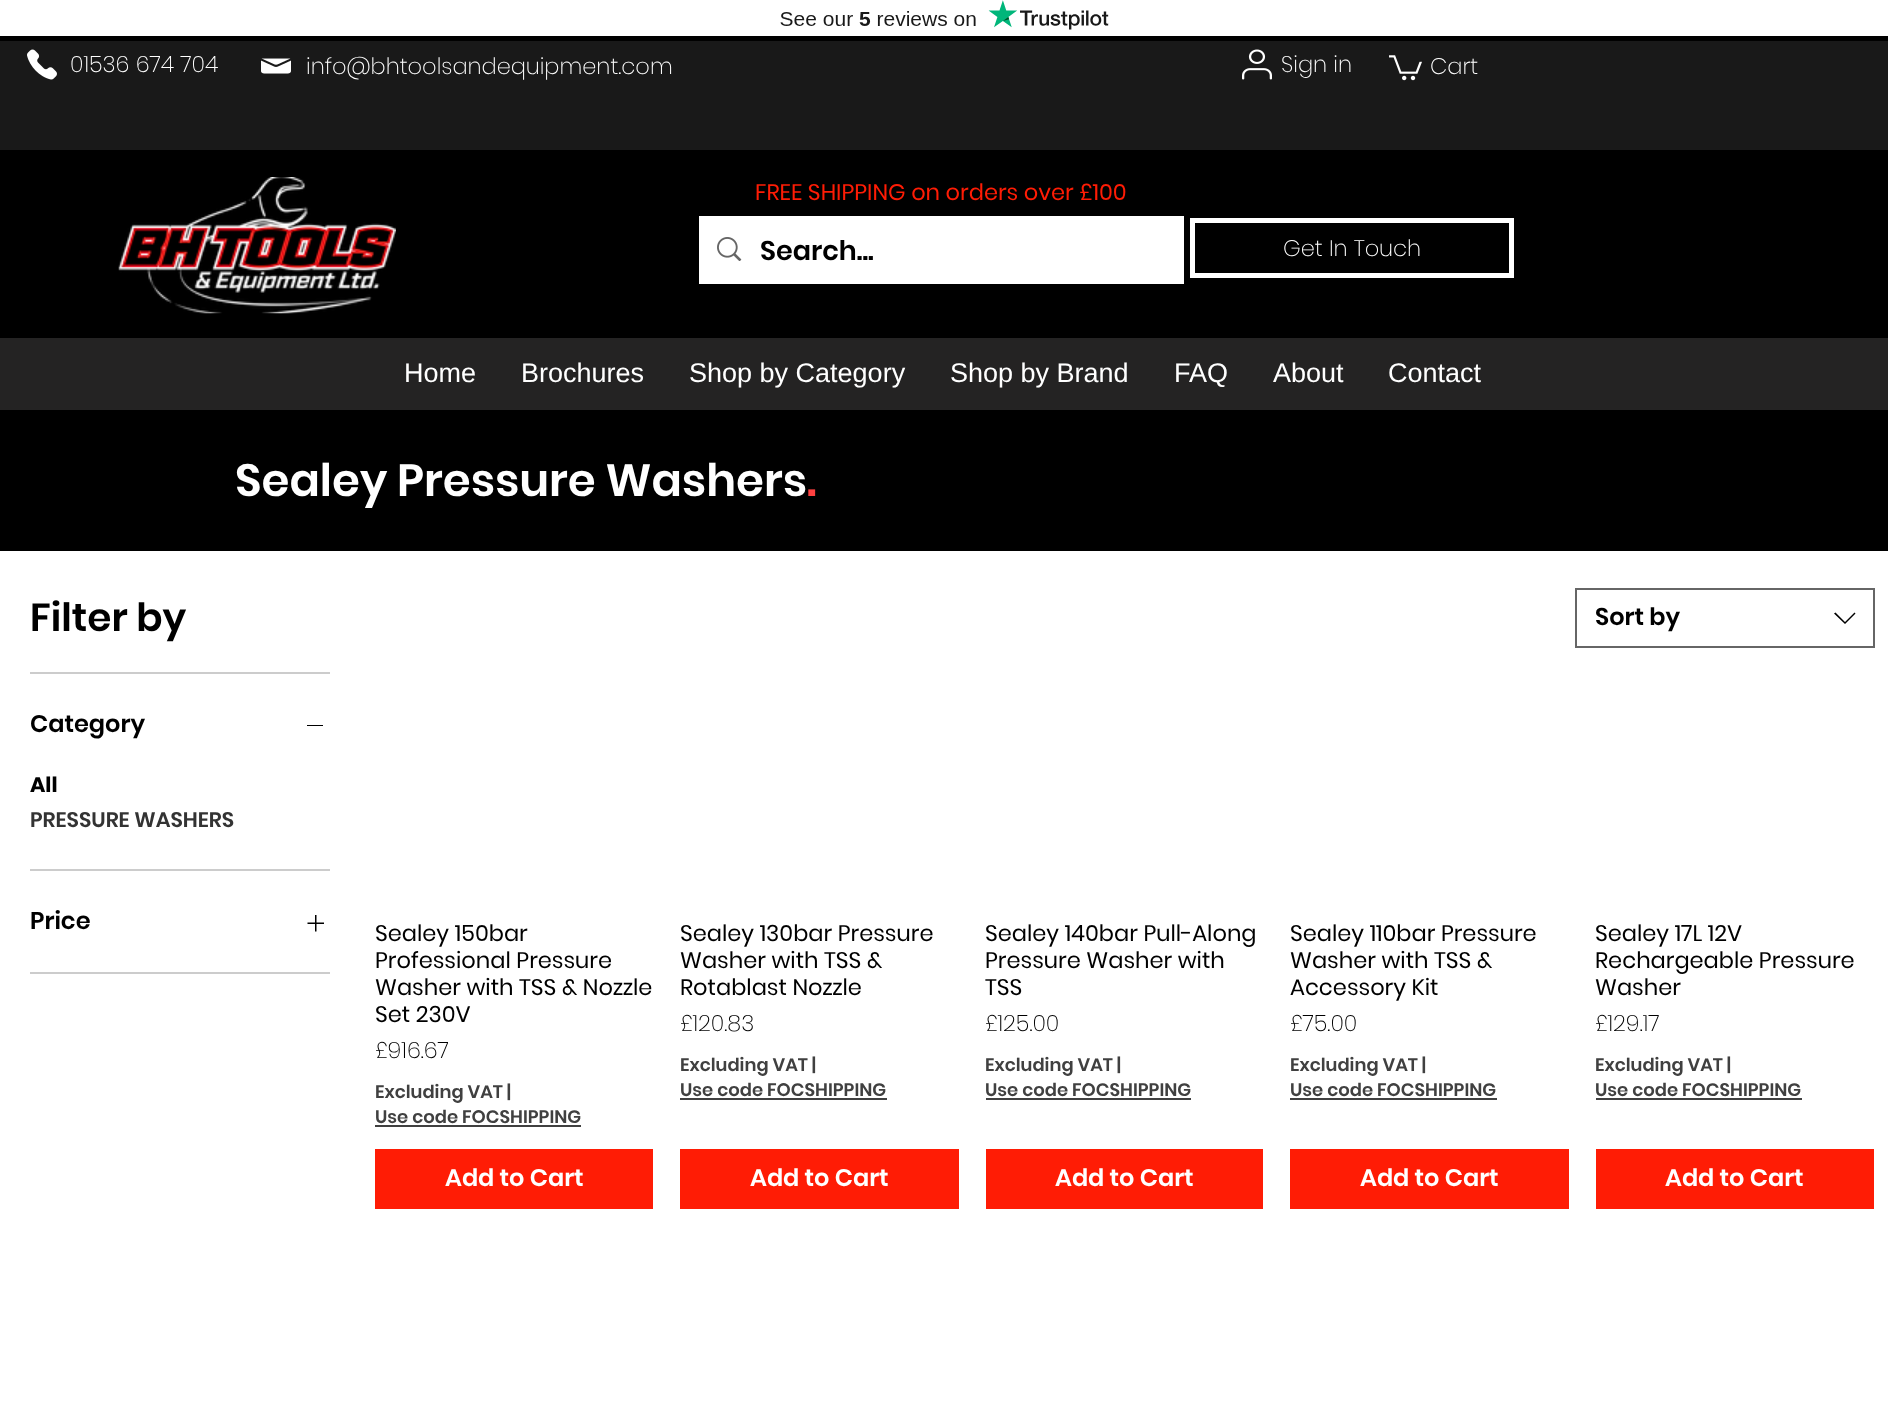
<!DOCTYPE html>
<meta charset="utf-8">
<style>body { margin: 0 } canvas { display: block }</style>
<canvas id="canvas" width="1888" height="1421"></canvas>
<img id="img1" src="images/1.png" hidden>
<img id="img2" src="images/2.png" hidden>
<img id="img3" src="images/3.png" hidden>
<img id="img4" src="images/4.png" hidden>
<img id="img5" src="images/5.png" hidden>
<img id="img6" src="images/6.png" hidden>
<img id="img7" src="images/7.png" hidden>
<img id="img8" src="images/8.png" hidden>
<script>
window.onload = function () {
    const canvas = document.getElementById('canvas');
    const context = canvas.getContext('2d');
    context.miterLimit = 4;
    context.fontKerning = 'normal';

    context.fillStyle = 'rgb(255, 255, 255)';
    context.fillRect(0, 0, 1888, 1421);
    context.drawImage(document.getElementById('img1'), 780, 0, 329, 30);
    context.fillStyle = 'rgb(0, 0, 0)';
    context.fillRect(0, 36, 1888, 515);
    context.fillStyle = 'rgb(25, 25, 25)';
    context.fillRect(0, 41, 1888, 109);
    context.drawImage(document.getElementById('img2'), 27, 49, 30, 31);
    context.drawImage(document.getElementById('img3'), 261, 58, 30, 16);
    context.drawImage(document.getElementById('img4'), 1242, 49, 30, 31);
    context.drawImage(document.getElementById('img5'), 1389, 55, 33, 26);
    context.drawImage(document.getElementById('img6'), 118, 177, 278, 137);
    context.fillStyle = 'rgb(255, 255, 255)';
    context.fillRect(699, 216, 485, 68);
    context.drawImage(document.getElementById('img7'), 717, 237, 25, 24);
    context.strokeStyle = 'rgb(255, 255, 255)';
    context.lineWidth = 5;
    context.strokeRect(1192.5, 220.5, 319, 55);
    context.fillStyle = 'rgb(36, 35, 35)';
    context.fillRect(0, 338, 1888, 72);
    context.fillStyle = 'rgb(204, 204, 204)';
    context.fillRect(30, 672, 300, 2);
    context.fillRect(30, 869, 300, 2);
    context.fillStyle = 'rgb(0, 0, 0)';
    context.fillRect(307, 725, 16, 1);
    context.fillStyle = 'rgb(204, 204, 204)';
    context.fillRect(30, 972, 300, 2);
    context.drawImage(document.getElementById('img8'), 307, 915, 17, 17);
    context.strokeStyle = 'rgb(102, 102, 102)';
    context.lineWidth = 2;
    context.strokeRect(1576, 589, 298, 58);
    context.fillStyle = 'rgb(0, 0, 0)';
    context.beginPath();
    context.moveTo(1854.5, 612.5);
    context.lineTo(1855.5, 613.5);
    context.lineTo(1845, 624);
    context.lineTo(1834, 613.5);
    context.lineTo(1835.5, 612.5);
    context.lineTo(1845, 622);
    context.closePath();
    context.fill('evenodd');
    context.fillStyle = 'rgb(64, 64, 64)';
    context.fillRect(375, 1125, 206, 2);
    context.fillStyle = 'rgb(255, 28, 5)';
    context.fillRect(375, 1149, 278, 60);
    context.fillStyle = 'rgb(64, 64, 64)';
    context.fillRect(680, 1098, 207, 2);
    context.fillStyle = 'rgb(255, 28, 5)';
    context.fillRect(680, 1149, 279, 60);
    context.fillStyle = 'rgb(64, 64, 64)';
    context.fillRect(986, 1098, 205, 2);
    context.fillStyle = 'rgb(255, 28, 5)';
    context.fillRect(986, 1149, 277, 60);
    context.fillStyle = 'rgb(64, 64, 64)';
    context.fillRect(1290, 1098, 207, 2);
    context.fillStyle = 'rgb(255, 28, 5)';
    context.fillRect(1290, 1149, 279, 60);
    context.fillStyle = 'rgb(64, 64, 64)';
    context.fillRect(1596, 1098, 206, 2);
    context.fillStyle = 'rgb(255, 28, 5)';
    context.fillRect(1596, 1149, 278, 60);
    context.font = '200 22.5px Poppins';
    context.fillStyle = 'rgb(255, 255, 255)';
    context.fillText('01536 674 704', 70, 72);
    context.fillText('info@bhtoolsandequipment.com', 306, 74);
    context.fillText('Sign in', 1281, 72);
    context.fillText('Cart', 1430, 74);
    context.font = '22.5px Poppins';
    context.fillStyle = 'rgb(255, 28, 5)';
    context.fillText('FREE SHIPPING on orders over £100', 755, 200);
    context.font = '600 27px Poppins';
    context.fillStyle = 'rgb(0, 0, 0)';
    context.fillText('Search...', 760, 260);
    context.font = '200 22.5px Poppins';
    context.fillStyle = 'rgb(255, 255, 255)';
    context.fillText('Get In Touch', 1283, 256);
    context.font = '27px Liberation Sans';
    context.fillText('Home', 404, 382);
    context.fillText('Brochures', 521, 382);
    context.fillText('Shop by Category', 689, 382);
    context.fillText('Shop by Brand', 950, 382);
    context.fillText('FAQ', 1174, 382);
    context.fillText('About', 1273, 382);
    context.fillText('Contact', 1388, 382);
    context.font = '600 45px Poppins';
    context.fillText('Sealey Pressure Washers', 235, 496);
    context.fillStyle = 'rgb(255, 64, 64)';
    context.fillText('.', 807, 496);
    context.font = '600 39px Poppins';
    context.fillStyle = 'rgb(0, 0, 0)';
    context.fillText('Filter by', 30, 631);
    context.font = '600 24px Poppins';
    context.fillText('Category', 30, 732);
    context.font = 'bold 21px Poppins';
    context.fillText('All', 30, 792);
    context.font = '600 21px Poppins';
    context.fillStyle = 'rgb(51, 51, 51)';
    context.fillText('PRESSURE WASHERS', 30, 827);
    context.font = '600 24px Poppins';
    context.fillStyle = 'rgb(0, 0, 0)';
    context.fillText('Price', 30, 929);
    context.fillText('Sort by', 1595, 625);
    context.font = '22.5px Poppins';
    context.fillText('Sealey 150bar', 375, 941);
    context.fillText('Professional Pressure', 375, 968);
    context.fillText('Washer with TSS & Nozzle', 375, 995);
    context.fillText('Set 230V', 375, 1022);
    context.font = '200 22.5px Poppins';
    context.fillText('£916.67', 375, 1058);
    context.font = '600 18px Poppins';
    context.fillStyle = 'rgb(64, 64, 64)';
    context.fillText('Excluding VAT |', 375, 1098);
    context.fillText('Use code FOCSHIPPING', 375, 1123);
    context.font = '600 24px Poppins';
    context.fillStyle = 'rgb(255, 255, 255)';
    context.fillText('Add to Cart', 445, 1186);
    context.font = '22.5px Poppins';
    context.fillStyle = 'rgb(0, 0, 0)';
    context.fillText('Sealey 130bar Pressure', 680, 941);
    context.fillText('Washer with TSS &', 680, 968);
    context.fillText('Rotablast Nozzle', 680, 995);
    context.font = '200 22.5px Poppins';
    context.fillText('£120.83', 680, 1031);
    context.font = '600 18px Poppins';
    context.fillStyle = 'rgb(64, 64, 64)';
    context.fillText('Excluding VAT |', 680, 1071);
    context.fillText('Use code FOCSHIPPING', 680, 1096);
    context.font = '600 24px Poppins';
    context.fillStyle = 'rgb(255, 255, 255)';
    context.fillText('Add to Cart', 750, 1186);
    context.font = '22.5px Poppins';
    context.fillStyle = 'rgb(0, 0, 0)';
    context.fillText('Sealey 140bar Pull-Along', 985, 941);
    context.fillText('Pressure Washer with', 985, 968);
    context.fillText('TSS', 985, 995);
    context.font = '200 22.5px Poppins';
    context.fillText('£125.00', 985, 1031);
    context.font = '600 18px Poppins';
    context.fillStyle = 'rgb(64, 64, 64)';
    context.fillText('Excluding VAT |', 985, 1071);
    context.fillText('Use code FOCSHIPPING', 985, 1096);
    context.font = '600 24px Poppins';
    context.fillStyle = 'rgb(255, 255, 255)';
    context.fillText('Add to Cart', 1055, 1186);
    context.font = '22.5px Poppins';
    context.fillStyle = 'rgb(0, 0, 0)';
    context.fillText('Sealey 110bar Pressure', 1290, 941);
    context.fillText('Washer with TSS &', 1290, 968);
    context.fillText('Accessory Kit', 1290, 995);
    context.font = '200 22.5px Poppins';
    context.fillText('£75.00', 1290, 1031);
    context.font = '600 18px Poppins';
    context.fillStyle = 'rgb(64, 64, 64)';
    context.fillText('Excluding VAT |', 1290, 1071);
    context.fillText('Use code FOCSHIPPING', 1290, 1096);
    context.font = '600 24px Poppins';
    context.fillStyle = 'rgb(255, 255, 255)';
    context.fillText('Add to Cart', 1360, 1186);
    context.font = '22.5px Poppins';
    context.fillStyle = 'rgb(0, 0, 0)';
    context.fillText('Sealey 17L 12V', 1595, 941);
    context.fillText('Rechargeable Pressure', 1595, 968);
    context.fillText('Washer', 1595, 995);
    context.font = '200 22.5px Poppins';
    context.fillText('£129.17', 1595, 1031);
    context.font = '600 18px Poppins';
    context.fillStyle = 'rgb(64, 64, 64)';
    context.fillText('Excluding VAT |', 1595, 1071);
    context.fillText('Use code FOCSHIPPING', 1595, 1096);
    context.font = '600 24px Poppins';
    context.fillStyle = 'rgb(255, 255, 255)';
    context.fillText('Add to Cart', 1665, 1186);
};
</script>
